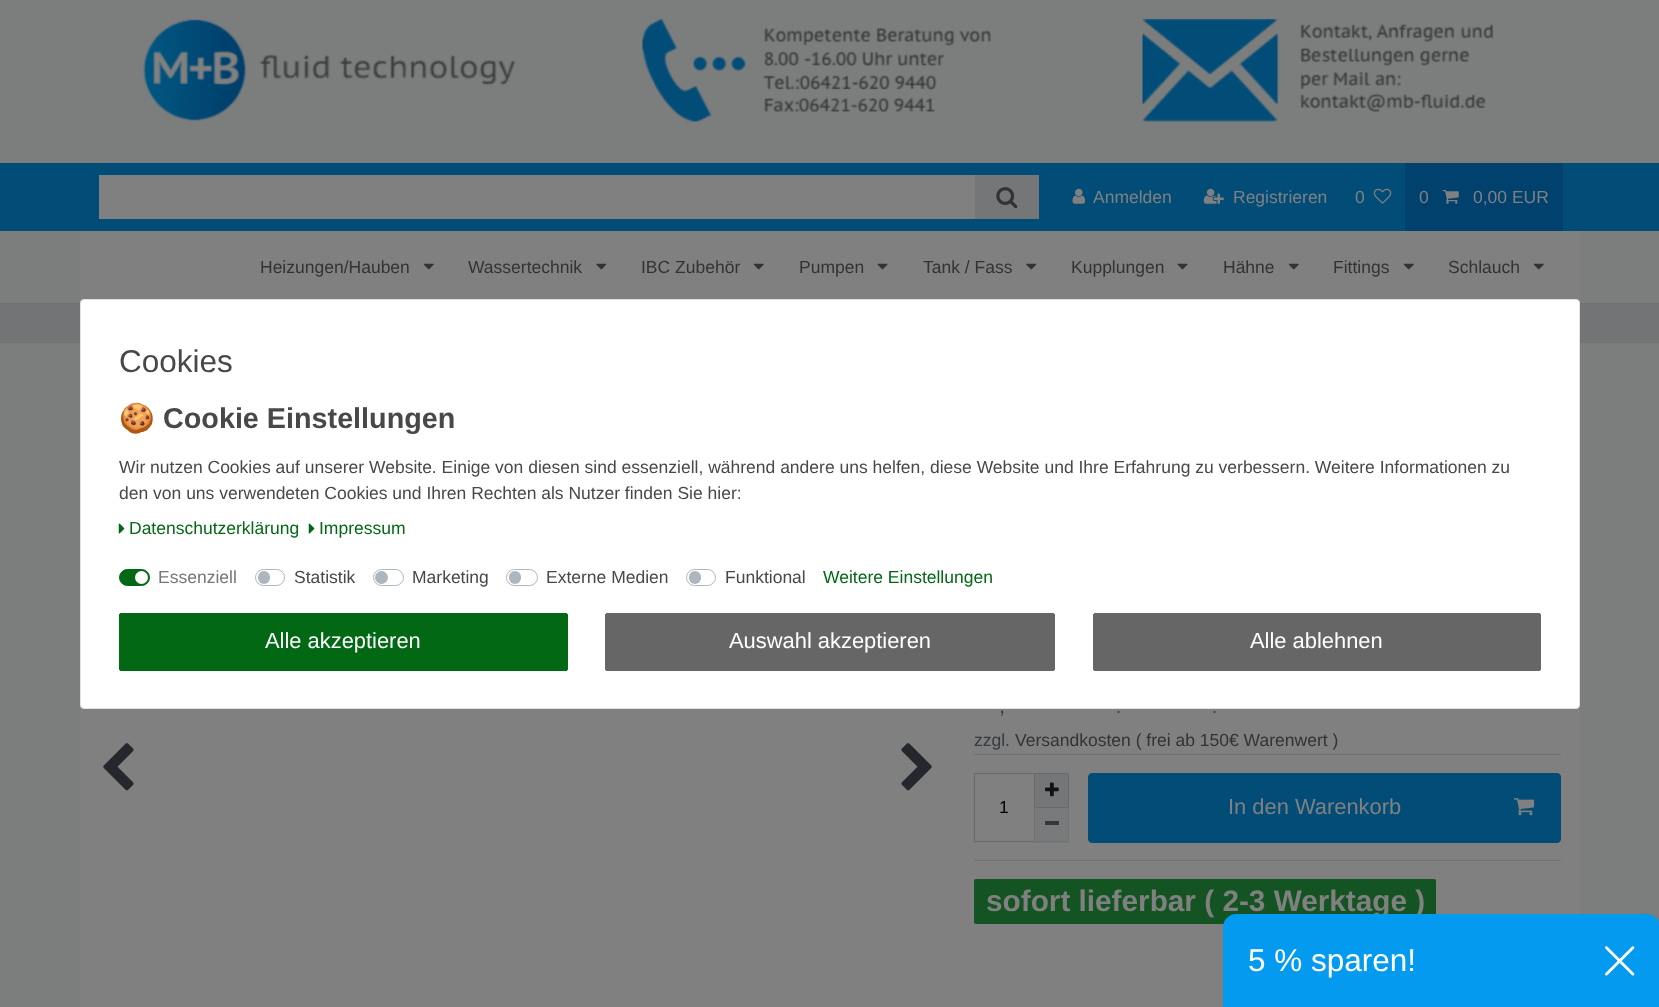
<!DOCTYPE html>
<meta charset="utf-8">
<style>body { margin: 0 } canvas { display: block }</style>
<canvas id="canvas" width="1659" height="1007"></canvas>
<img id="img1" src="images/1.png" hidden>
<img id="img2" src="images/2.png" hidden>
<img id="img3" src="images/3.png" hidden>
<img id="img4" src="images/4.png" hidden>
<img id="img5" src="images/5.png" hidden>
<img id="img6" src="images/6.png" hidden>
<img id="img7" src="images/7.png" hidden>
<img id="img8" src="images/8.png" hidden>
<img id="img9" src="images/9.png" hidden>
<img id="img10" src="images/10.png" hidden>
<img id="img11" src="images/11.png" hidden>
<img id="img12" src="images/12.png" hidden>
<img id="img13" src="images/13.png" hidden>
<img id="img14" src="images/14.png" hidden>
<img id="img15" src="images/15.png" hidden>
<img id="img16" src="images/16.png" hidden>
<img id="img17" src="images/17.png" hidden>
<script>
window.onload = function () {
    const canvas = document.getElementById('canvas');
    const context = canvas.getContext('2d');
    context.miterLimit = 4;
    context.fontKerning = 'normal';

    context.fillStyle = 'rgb(124, 125, 125)';
    context.fillRect(0, 0, 1659, 1007);
    context.drawImage(document.getElementById('img1'), 143, 19, 373, 102);
    context.drawImage(document.getElementById('img2'), 642, 19, 349, 103);
    context.drawImage(document.getElementById('img3'), 1142, 19, 352, 103);
    context.fillStyle = 'rgb(2, 77, 120)';
    context.fillRect(0, 163, 1659, 68);
    context.fillStyle = 'rgb(128, 128, 128)';
    context.fillRect(99, 175, 876, 44);
    context.fillStyle = 'rgb(117, 118, 120)';
    context.fillRect(975, 175, 64, 44);
    context.drawImage(document.getElementById('img4'), 996, 187, 22, 22);
    context.drawImage(document.getElementById('img5'), 1072, 188, 13, 16);
    context.drawImage(document.getElementById('img6'), 1203, 188, 21, 16);
    context.drawImage(document.getElementById('img7'), 1373, 188, 19, 16);
    context.fillStyle = 'rgb(0, 65, 110)';
    context.fillRect(1405, 163, 158, 68);
    context.drawImage(document.getElementById('img8'), 1442, 190, 17, 14);
    context.fillStyle = 'rgb(111, 113, 115)';
    context.fillRect(0, 303, 1659, 1);
    context.fillStyle = 'rgb(128, 128, 128)';
    context.fillRect(80, 231, 1500, 72);
    context.drawImage(document.getElementById('img9'), 423, 263, 11, 7);
    context.drawImage(document.getElementById('img10'), 596, 263, 11, 7);
    context.drawImage(document.getElementById('img9'), 753, 263, 11, 7);
    context.drawImage(document.getElementById('img11'), 877, 263, 11, 7);
    context.drawImage(document.getElementById('img10'), 1026, 263, 11, 7);
    context.drawImage(document.getElementById('img11'), 1177, 263, 11, 7);
    context.drawImage(document.getElementById('img9'), 1288, 263, 11, 7);
    context.drawImage(document.getElementById('img9'), 1403, 263, 11, 7);
    context.drawImage(document.getElementById('img9'), 1533, 263, 11, 7);
    context.fillStyle = 'rgb(114, 116, 118)';
    context.fillRect(0, 304, 1659, 39);
    context.fillStyle = 'rgb(128, 128, 128)';
    context.fillRect(80, 705, 1500, 302);
    context.drawImage(document.getElementById('img12'), 103, 743, 31, 48);
    context.drawImage(document.getElementById('img13'), 901, 743, 31, 48);
    context.fillStyle = 'rgb(111, 113, 115)';
    context.fillRect(974, 754, 587, 1);
    context.fillStyle = 'rgb(103, 106, 109)';
    context.fillRect(974, 773, 60, 1);
    context.fillRect(974, 841, 60, 1);
    context.fillRect(974, 773, 1, 70);
    context.fillStyle = 'rgb(117, 118, 120)';
    context.beginPath();
    context.roundRect(1034.5, 773.5, 34, 34, [0, 1.5, 0, 0]);
    context.fill();
    context.strokeStyle = 'rgb(103, 106, 109)';
    context.stroke();
    context.drawImage(document.getElementById('img14'), 1045, 782, 14, 15);
    context.fillStyle = 'rgb(121, 122, 123)';
    context.beginPath();
    context.roundRect(1034, 808, 35, 35, [0, 0, 2, 0]);
    context.fill();
    context.fillStyle = 'rgb(112, 114, 116)';
    context.fillRect(1068, 808, 1, 33);
    context.fillRect(1034, 841, 34, 1);
    context.fillRect(1034, 808, 1, 35);
    context.fillStyle = 'rgb(53, 55, 56)';
    context.fillRect(1045, 821, 14, 4);
    context.fillStyle = 'rgb(2, 77, 120)';
    context.beginPath();
    context.roundRect(1088.5, 773.5, 472, 69, 3.5);
    context.fill();
    context.strokeStyle = 'rgb(2, 77, 120)';
    context.stroke();
    context.drawImage(document.getElementById('img15'), 1513, 798, 22, 18);
    context.fillStyle = 'rgb(111, 113, 115)';
    context.fillRect(974, 860, 587, 1);
    context.fillStyle = 'rgb(20, 84, 35)';
    context.beginPath();
    context.roundRect(974, 879, 462, 45, 2);
    context.fill();
    context.fillStyle = 'rgb(255, 255, 255)';
    context.beginPath();
    context.roundRect(80.5, 299.5, 1499, 409, 3.5);
    context.fill();
    context.strokeStyle = 'rgb(222, 226, 230)';
    context.stroke();
    context.drawImage(document.getElementById('img16'), 118, 523, 7, 11);
    context.drawImage(document.getElementById('img16'), 308, 523, 7, 11);
    context.fillStyle = 'rgb(2, 104, 20)';
    context.beginPath();
    context.roundRect(119.5, 569.5, 30, 16, 8);
    context.fill();
    context.strokeStyle = 'rgb(2, 104, 20)';
    context.stroke();
    context.fillStyle = 'rgb(255, 255, 255)';
    context.beginPath();
    context.arc(141.5, 577.5, 6.5, 0, 2 * Math.PI);
    context.fill();
    context.beginPath();
    context.roundRect(255.5, 569.5, 29, 16, 8);
    context.strokeStyle = 'rgb(173, 181, 189)';
    context.stroke();
    context.fillStyle = 'rgb(173, 181, 189)';
    context.beginPath();
    context.roundRect(258, 571, 12, 13, 6);
    context.fill();
    context.beginPath();
    context.roundRect(373.5, 569.5, 30, 16, 8);
    context.stroke();
    context.beginPath();
    context.arc(381.5, 577.5, 6.5, 0, 2 * Math.PI);
    context.fill();
    context.beginPath();
    context.roundRect(506.5, 569.5, 31, 16, 8);
    context.stroke();
    context.beginPath();
    context.roundRect(509, 571, 12, 13, 6);
    context.fill();
    context.beginPath();
    context.roundRect(686.5, 569.5, 29, 16, 8);
    context.stroke();
    context.beginPath();
    context.roundRect(689, 571, 12, 13, 6);
    context.fill();
    context.fillStyle = 'rgb(2, 104, 20)';
    context.beginPath();
    context.roundRect(119.5, 613.5, 448, 57, 1.5);
    context.fill();
    context.strokeStyle = 'rgb(2, 104, 20)';
    context.stroke();
    context.fillStyle = 'rgb(102, 102, 102)';
    context.beginPath();
    context.roundRect(605.5, 613.5, 449, 57, 1.5);
    context.fill();
    context.strokeStyle = 'rgb(102, 102, 102)';
    context.stroke();
    context.beginPath();
    context.roundRect(1093.5, 613.5, 447, 57, 1.5);
    context.fill();
    context.stroke();
    context.font = '17.5px Liberation Sans';
    context.fillStyle = 'rgb(128, 128, 128)';
    context.fillText('Anmelden', 1093, 203);
    context.fillText('Registrieren', 1233, 203);
    context.fillText('0', 1355, 203);
    context.fillText('0', 1419, 203);
    context.fillText('0,00 EUR', 1473, 203);
    context.fillStyle = 'rgb(51, 51, 51)';
    context.fillText('Heizungen/Hauben', 260, 273);
    context.fillText('Wassertechnik', 468, 273);
    context.fillText('IBC Zubehör', 641, 273);
    context.fillText('Pumpen', 799, 273);
    context.fillText('Tank / Fass', 923, 273);
    context.fillText('Kupplungen', 1071, 273);
    context.fillText('Hähne', 1223, 273);
    context.fillText('Fittings', 1333, 273);
    context.fillText('Schlauch', 1448, 273);
    context.font = '22px Liberation Sans';
    context.fillStyle = 'rgb(54, 59, 63)';
    context.fillText(',', 999, 713);
    context.font = '18px Liberation Sans';
    context.fillText('.', 1116, 713);
    context.fillText('.', 1212, 713);
    context.font = '17.5px Liberation Sans';
    context.fillText('zzgl.', 974, 746);
    context.fillStyle = 'rgb(51, 51, 51)';
    context.fillText('Versandkosten ( frei ab 150€ Warenwert )', 1015, 746);
    context.fillStyle = 'rgb(0, 0, 0)';
    context.fillText('1', 999, 813);
    context.font = '21.9px Liberation Sans';
    context.fillStyle = 'rgb(128, 128, 128)';
    context.fillText('In den Warenkorb', 1228, 814);
    context.font = 'bold 29.75px Liberation Sans';
    context.fillText('sofort lieferbar ( 2-3 Werktage )', 986, 911);
    context.font = '31.5px Liberation Sans';
    context.fillStyle = 'rgb(72, 72, 72)';
    context.fillText('Cookies', 119, 372);
    context.font = 'bold 28.75px Noto Color Emoji';
    context.fillText('🍪', 119, 428);
    context.font = 'bold 28.75px Liberation Sans';
    context.fillText('Cookie Einstellungen', 163, 428);
    context.font = '17.5px Liberation Sans';
    context.fillText('Wir nutzen Cookies auf unserer Website. Einige von diesen sind essenziell, während andere uns helfen, diese Website und Ihre Erfahrung zu verbessern. Weitere Informationen zu', 119, 473);
    context.fillText('den von uns verwendeten Cookies und Ihren Rechten als Nutzer finden Sie hier:', 119, 499);
    context.fillStyle = 'rgb(2, 104, 20)';
    context.fillText('Datenschutzerklärung', 129, 534);
    context.fillText('Impressum', 319, 534);
    context.fillStyle = 'rgb(118, 118, 118)';
    context.fillText('Essenziell', 158, 583);
    context.fillStyle = 'rgb(72, 72, 72)';
    context.fillText('Statistik', 294, 583);
    context.fillText('Marketing', 412, 583);
    context.fillText('Externe Medien', 546, 583);
    context.fillText('Funktional', 725, 583);
    context.fillStyle = 'rgb(2, 104, 20)';
    context.fillText('Weitere Einstellungen', 823, 583);
    context.font = '21.9px Liberation Sans';
    context.fillStyle = 'rgb(255, 255, 255)';
    context.fillText('Alle akzeptieren', 265, 648);
    context.fillText('Auswahl akzeptieren', 729, 648);
    context.fillText('Alle ablehnen', 1250, 648);
    context.fillStyle = 'rgb(3, 154, 239)';
    context.beginPath();
    context.moveTo(1236, 914);
    context.lineTo(1647, 914);
    context.bezierCurveTo(1654, 914, 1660, 920, 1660, 927);
    context.lineTo(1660, 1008);
    context.lineTo(1223, 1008);
    context.lineTo(1223, 927);
    context.bezierCurveTo(1223, 920, 1229, 914, 1236, 914);
    context.closePath();
    context.fill();
    context.font = '31.5px Liberation Sans';
    context.fillStyle = 'rgb(255, 255, 255)';
    context.fillText('5 % sparen!', 1248, 971);
    context.drawImage(document.getElementById('img17'), 1605, 946, 30, 30);
};
</script>
